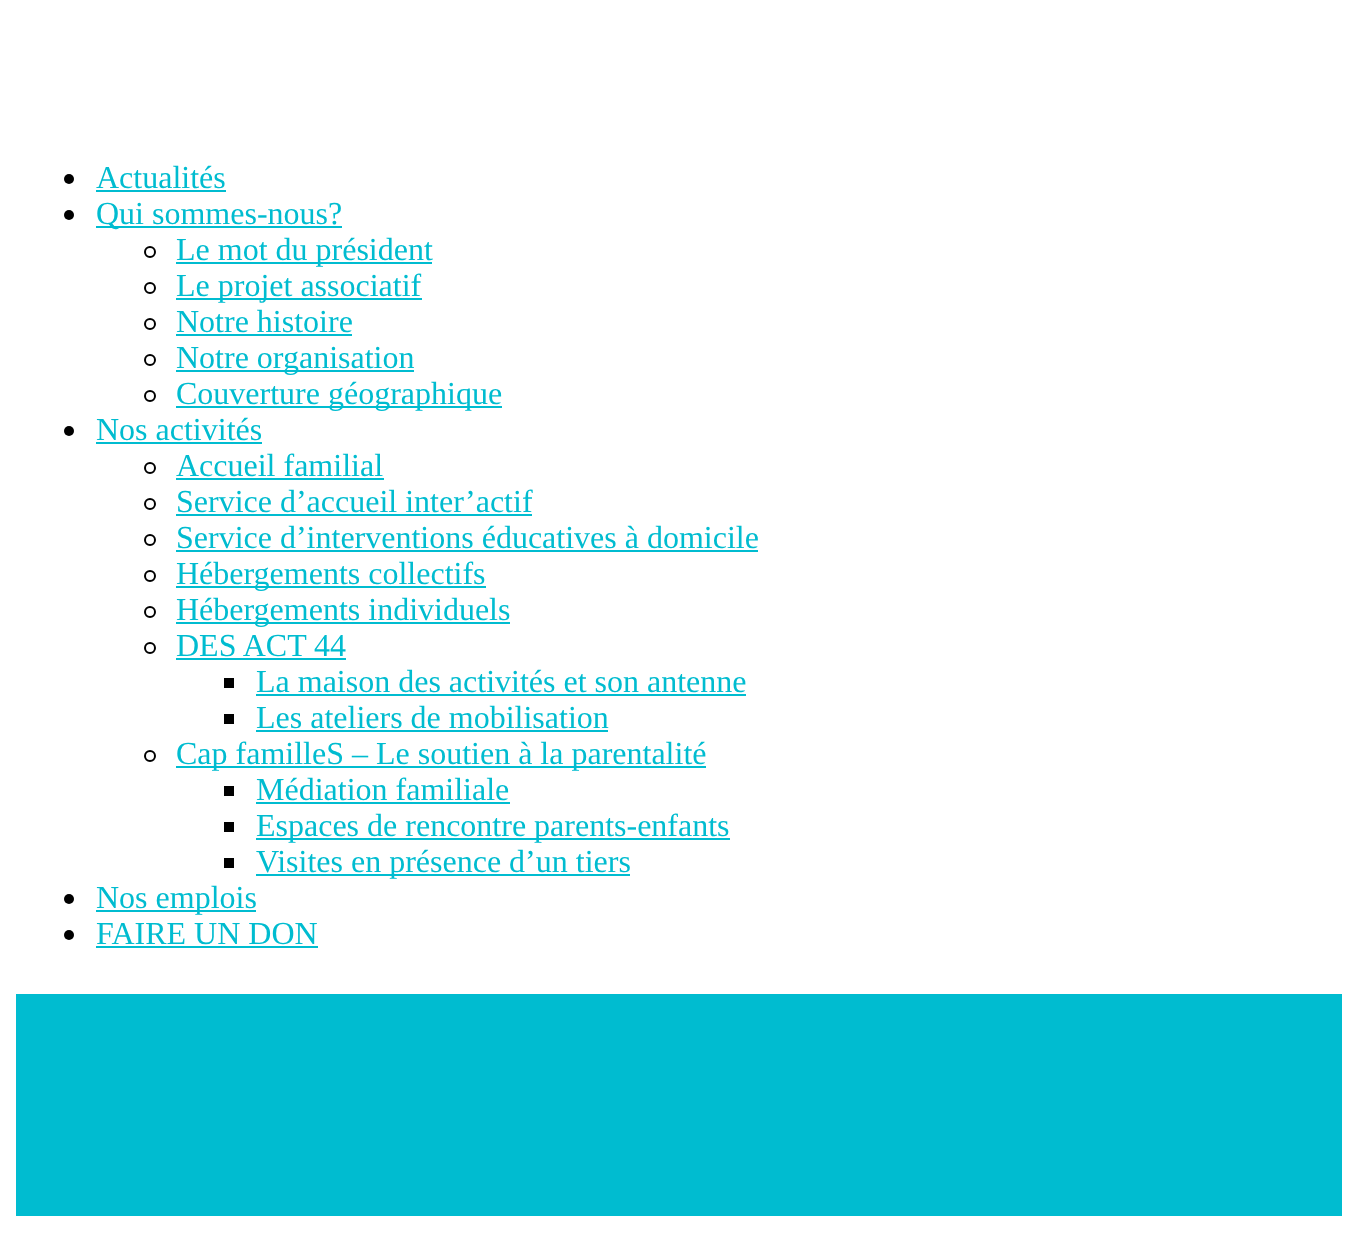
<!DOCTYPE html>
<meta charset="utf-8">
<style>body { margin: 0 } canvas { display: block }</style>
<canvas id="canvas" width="1358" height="1245"></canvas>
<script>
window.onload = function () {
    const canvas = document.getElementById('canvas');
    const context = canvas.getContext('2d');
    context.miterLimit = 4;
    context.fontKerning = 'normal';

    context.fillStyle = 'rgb(255, 255, 255)';
    context.fillRect(0, 0, 1358, 1245);
    context.fillStyle = 'rgb(0, 0, 0)';
    context.beginPath();
    context.arc(69, 179, 5, 0, 2 * Math.PI);
    context.fill();
    context.fillStyle = 'rgb(0, 188, 208)';
    context.fillRect(96, 190, 130, 2);
    context.fillStyle = 'rgb(0, 0, 0)';
    context.beginPath();
    context.arc(69, 215, 5, 0, 2 * Math.PI);
    context.fill();
    context.fillStyle = 'rgb(0, 188, 208)';
    context.fillRect(96, 226, 246, 2);
    context.beginPath();
    context.arc(150, 252, 5, 0, 2 * Math.PI);
    context.strokeStyle = 'rgb(0, 0, 0)';
    context.lineWidth = 2;
    context.stroke();
    context.fillRect(176, 262, 256, 2);
    context.beginPath();
    context.arc(150, 288, 5, 0, 2 * Math.PI);
    context.stroke();
    context.fillRect(176, 298, 246, 2);
    context.beginPath();
    context.arc(150, 324, 5, 0, 2 * Math.PI);
    context.stroke();
    context.fillRect(176, 334, 176, 2);
    context.beginPath();
    context.arc(150, 360, 5, 0, 2 * Math.PI);
    context.stroke();
    context.fillRect(176, 370, 238, 2);
    context.beginPath();
    context.arc(150, 396, 5, 0, 2 * Math.PI);
    context.stroke();
    context.fillRect(176, 406, 326, 2);
    context.fillStyle = 'rgb(0, 0, 0)';
    context.beginPath();
    context.arc(69, 431, 5, 0, 2 * Math.PI);
    context.fill();
    context.fillStyle = 'rgb(0, 188, 208)';
    context.fillRect(96, 442, 166, 2);
    context.beginPath();
    context.arc(150, 468, 5, 0, 2 * Math.PI);
    context.stroke();
    context.fillRect(176, 478, 208, 2);
    context.beginPath();
    context.arc(150, 504, 5, 0, 2 * Math.PI);
    context.stroke();
    context.fillRect(176, 514, 356, 2);
    context.beginPath();
    context.arc(150, 540, 5, 0, 2 * Math.PI);
    context.stroke();
    context.fillRect(176, 550, 582, 2);
    context.beginPath();
    context.arc(150, 576, 5, 0, 2 * Math.PI);
    context.stroke();
    context.fillRect(176, 586, 310, 2);
    context.beginPath();
    context.arc(150, 612, 5, 0, 2 * Math.PI);
    context.stroke();
    context.fillRect(176, 622, 334, 2);
    context.beginPath();
    context.arc(150, 648, 5, 0, 2 * Math.PI);
    context.stroke();
    context.fillRect(176, 658, 170, 2);
    context.fillStyle = 'rgb(0, 0, 0)';
    context.fillRect(224, 678, 10, 10);
    context.fillStyle = 'rgb(0, 188, 208)';
    context.fillRect(256, 694, 490, 2);
    context.fillStyle = 'rgb(0, 0, 0)';
    context.fillRect(224, 714, 10, 10);
    context.fillStyle = 'rgb(0, 188, 208)';
    context.fillRect(256, 730, 352, 2);
    context.beginPath();
    context.arc(150, 756, 5, 0, 2 * Math.PI);
    context.stroke();
    context.fillRect(176, 766, 530, 2);
    context.fillStyle = 'rgb(0, 0, 0)';
    context.fillRect(224, 786, 10, 10);
    context.fillStyle = 'rgb(0, 188, 208)';
    context.fillRect(256, 802, 254, 2);
    context.fillStyle = 'rgb(0, 0, 0)';
    context.fillRect(224, 822, 10, 10);
    context.fillStyle = 'rgb(0, 188, 208)';
    context.fillRect(256, 838, 474, 2);
    context.fillStyle = 'rgb(0, 0, 0)';
    context.fillRect(224, 858, 10, 10);
    context.fillStyle = 'rgb(0, 188, 208)';
    context.fillRect(256, 874, 374, 2);
    context.fillStyle = 'rgb(0, 0, 0)';
    context.beginPath();
    context.arc(69, 899, 5, 0, 2 * Math.PI);
    context.fill();
    context.fillStyle = 'rgb(0, 188, 208)';
    context.fillRect(96, 910, 160, 2);
    context.fillStyle = 'rgb(0, 0, 0)';
    context.beginPath();
    context.arc(69, 935, 5, 0, 2 * Math.PI);
    context.fill();
    context.fillStyle = 'rgb(0, 188, 208)';
    context.fillRect(96, 946, 222, 2);
    context.fillRect(16, 994, 1326, 222);
    context.font = '32px Liberation Serif';
    context.fillText('Actualités', 96, 188);
    context.fillText('Qui sommes-nous?', 96, 224);
    context.fillText('Le mot du président', 176, 260);
    context.fillText('Le projet associatif', 176, 296);
    context.fillText('Notre histoire', 176, 332);
    context.fillText('Notre organisation', 176, 368);
    context.fillText('Couverture géographique', 176, 404);
    context.fillText('Nos activités', 96, 440);
    context.fillText('Accueil familial', 176, 476);
    context.fillText('Service d’accueil inter’actif', 176, 512);
    context.fillText('Service d’interventions éducatives à domicile', 176, 548);
    context.fillText('Hébergements collectifs', 176, 584);
    context.fillText('Hébergements individuels', 176, 620);
    context.fillText('DES ACT 44', 176, 656);
    context.fillText('La maison des activités et son antenne', 256, 692);
    context.fillText('Les ateliers de mobilisation', 256, 728);
    context.fillText('Cap familleS – Le soutien à la parentalité', 176, 764);
    context.fillText('Médiation familiale', 256, 800);
    context.fillText('Espaces de rencontre parents-enfants', 256, 836);
    context.fillText('Visites en présence d’un tiers', 256, 872);
    context.fillText('Nos emplois', 96, 908);
    context.fillText('FAIRE UN DON', 96, 944);
};
</script>
